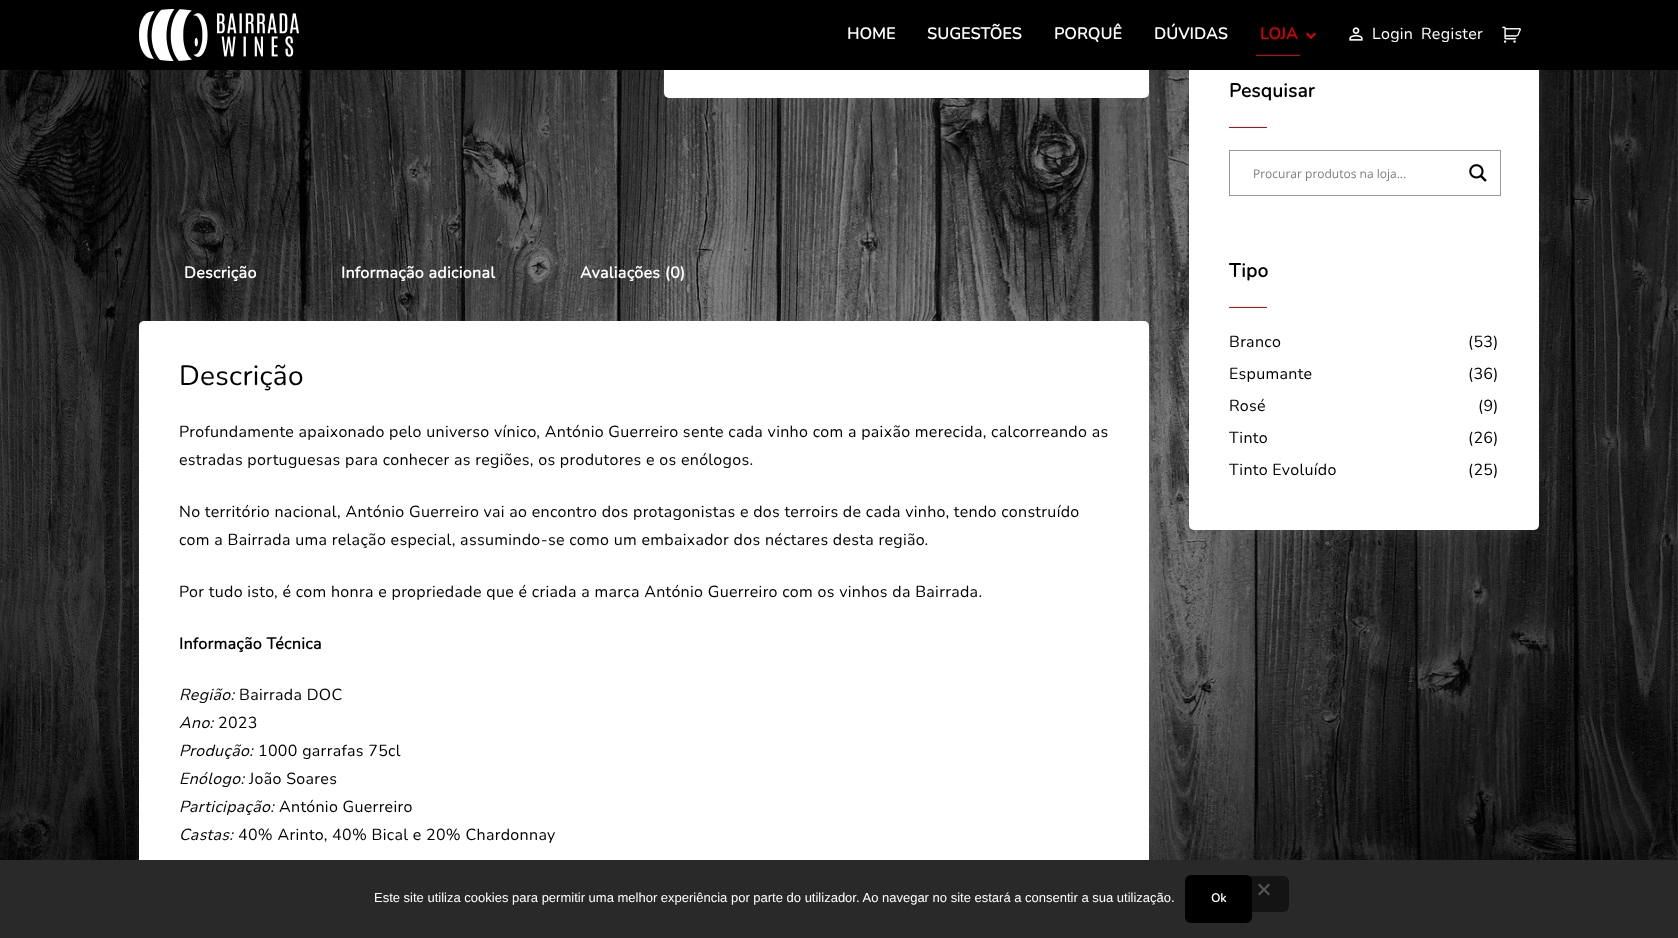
<!DOCTYPE html>
<meta charset="utf-8">
<style>body { margin: 0 } canvas { display: block }</style>
<canvas id="canvas" width="1678" height="938"></canvas>
<img id="img1" src="images/1.png" hidden>
<img id="img2" src="images/2.png" hidden>
<img id="img3" src="images/3.png" hidden>
<img id="img4" src="images/4.png" hidden>
<img id="img5" src="images/5.png" hidden>
<script>
window.onload = function () {
    const canvas = document.getElementById('canvas');
    const context = canvas.getContext('2d');
    context.miterLimit = 4;
    context.fontKerning = 'normal';

    context.fillStyle = 'rgb(255, 255, 255)';
    context.fillRect(0, 0, 1678, 938);
    context.drawImage(document.getElementById('img1'), 0, 70, 1678, 790);
    context.fillStyle = 'rgba(147, 146, 144, 0.15)';
    context.filter = 'blur(7.5px)';
    context.beginPath();
    context.roundRect(664, -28, 485, 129, 5);
    context.fill();
    context.filter = 'none';
    context.fillStyle = 'rgb(255, 255, 255)';
    context.beginPath();
    context.roundRect(664, -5, 485, 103, 5);
    context.fill();
    context.fillStyle = 'rgba(147, 146, 144, 0.15)';
    context.filter = 'blur(7.5px)';
    context.beginPath();
    context.roundRect(1189, 43, 350, 490, 5);
    context.fill();
    context.filter = 'none';
    context.fillStyle = 'rgb(255, 255, 255)';
    context.beginPath();
    context.roundRect(1189, 40, 350, 490, 5);
    context.fill();
    context.fillStyle = 'rgb(0, 0, 0)';
    context.fillRect(0, 0, 1678, 70);
    context.drawImage(document.getElementById('img2'), 139, 9, 160, 52);
    context.fillStyle = 'rgb(221, 0, 0)';
    context.fillRect(1256, 55, 44, 1);
    context.beginPath();
    context.moveTo(1316, 34);
    context.lineTo(1311, 39);
    context.lineTo(1309.5, 37.5);
    context.lineTo(1314.5, 32.5);
    context.closePath();
    context.fill();
    context.beginPath();
    context.moveTo(1312.5, 37.5);
    context.lineTo(1311, 39);
    context.lineTo(1306, 34);
    context.lineTo(1307.5, 32.5);
    context.closePath();
    context.fill();
    context.drawImage(document.getElementById('img3'), 1349, 27, 14, 14);
    context.drawImage(document.getElementById('img4'), 1502, 26, 19, 17);
    context.fillStyle = 'rgba(147, 146, 144, 0.15)';
    context.filter = 'blur(7.5px)';
    context.beginPath();
    context.roundRect(139, 324, 1010, 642, 5);
    context.fill();
    context.filter = 'none';
    context.fillStyle = 'rgb(255, 255, 255)';
    context.beginPath();
    context.roundRect(139, 321, 1010, 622, 5);
    context.fill();
    context.fillStyle = 'rgb(221, 0, 0)';
    context.fillRect(1229, 127, 38, 1);
    context.strokeStyle = 'rgb(153, 153, 153)';
    context.strokeRect(1229.5, 150.5, 271, 45);
    context.drawImage(document.getElementById('img5'), 1469, 164, 18, 18);
    context.fillRect(1229, 307, 38, 1);
    context.fillStyle = 'rgb(41, 41, 41)';
    context.fillRect(0, 860, 1678, 78);
    context.fillStyle = 'rgb(0, 0, 0)';
    context.beginPath();
    context.roundRect(1185, 875, 67, 48, 6);
    context.fill();
    context.fillStyle = 'rgba(0, 0, 0, 0.5)';
    context.beginPath();
    context.roundRect(1237, 876, 52, 36, 6);
    context.fill();
    context.fillStyle = 'rgb(85, 85, 85)';
    context.beginPath();
    context.moveTo(1268.5, 883.5);
    context.lineTo(1270, 885);
    context.lineTo(1259.5, 895.5);
    context.lineTo(1258, 894);
    context.closePath();
    context.fill();
    context.beginPath();
    context.moveTo(1258, 885);
    context.lineTo(1259.5, 883.5);
    context.lineTo(1270, 894);
    context.lineTo(1268.5, 895.5);
    context.closePath();
    context.fill();
    context.letterSpacing = '0.32px';
    context.font = 'bold 16px Nunito';
    context.fillStyle = 'rgb(255, 255, 255)';
    context.fillText('HOME', 847, 39);
    context.fillText('SUGESTÕES', 927, 39);
    context.fillText('PORQUÊ', 1054, 39);
    context.fillText('DÚVIDAS', 1154, 39);
    context.fillStyle = 'rgb(221, 0, 0)';
    context.fillText('LOJA', 1260, 39);
    context.font = '200 16px Nunito';
    context.fillStyle = 'rgb(255, 255, 255)';
    context.fillText('Login', 1372, 39);
    context.fillText('Register', 1421, 39);
    context.font = 'bold 16px Nunito';
    context.fillText('Descrição', 184, 278);
    context.fillText('Informação adicional', 341, 278);
    context.fillText('Avaliações (0)', 580, 278);
    context.font = '200 28px Nunito';
    context.fillStyle = 'rgb(0, 0, 0)';
    context.fillText('Descrição', 179, 385);
    context.font = '200 16px Nunito';
    context.fillText('Profundamente apaixonado pelo universo vínico, António Guerreiro sente cada vinho com a paixão merecida, calcorreando as', 179, 437);
    context.fillText('estradas portuguesas para conhecer as regiões, os produtores e os enólogos.', 179, 465);
    context.fillText('No território nacional, António Guerreiro vai ao encontro dos protagonistas e dos terroirs de cada vinho, tendo construído', 179, 517);
    context.fillText('com a Bairrada uma relação especial, assumindo-se como um embaixador dos néctares desta região.', 179, 545);
    context.fillText('Por tudo isto, é com honra e propriedade que é criada a marca António Guerreiro com os vinhos da Bairrada.', 179, 597);
    context.font = 'bold 16px Nunito';
    context.fillText('Informação Técnica', 179, 649);
    context.font = 'italic 200 16px Nunito';
    context.fillText('Região:', 179, 700);
    context.font = '200 16px Nunito';
    context.fillText('Bairrada DOC', 239, 700);
    context.font = 'italic 200 16px Nunito';
    context.fillText('Ano:', 179, 728);
    context.font = '200 16px Nunito';
    context.fillText('2023', 218, 728);
    context.font = 'italic 200 16px Nunito';
    context.fillText('Produção:', 179, 756);
    context.font = '200 16px Nunito';
    context.fillText('1000 garrafas 75cl', 258, 756);
    context.font = 'italic 200 16px Nunito';
    context.fillText('Enólogo:', 179, 784);
    context.font = '200 16px Nunito';
    context.fillText('João Soares', 249, 784);
    context.font = 'italic 200 16px Nunito';
    context.fillText('Participação:', 179, 812);
    context.font = '200 16px Nunito';
    context.fillText('António Guerreiro', 279, 812);
    context.font = 'italic 200 16px Nunito';
    context.fillText('Castas:', 179, 840);
    context.font = '200 16px Nunito';
    context.fillText('40% Arinto, 40% Bical e 20% Chardonnay', 238, 840);
    context.font = 'bold 19px Nunito';
    context.fillText('Pesquisar', 1229, 97);
    context.letterSpacing = '0px';
    context.font = '12px Open Sans';
    context.fillStyle = 'rgb(125, 125, 125)';
    context.fillText('Procurar produtos na loja...', 1253, 178);
    context.letterSpacing = '0.32px';
    context.font = 'bold 19px Nunito';
    context.fillStyle = 'rgb(0, 0, 0)';
    context.fillText('Tipo', 1229, 277);
    context.font = '200 16px Nunito';
    context.fillText('Branco', 1229, 347);
    context.fillText('(53)', 1468, 347);
    context.fillText('Espumante', 1229, 379);
    context.fillText('(36)', 1468, 379);
    context.fillText('Rosé', 1229, 411);
    context.fillText('(9)', 1478, 411);
    context.fillText('Tinto', 1229, 443);
    context.fillText('(26)', 1468, 443);
    context.fillText('Tinto Evoluído', 1229, 475);
    context.fillText('(25)', 1468, 475);
    context.letterSpacing = '0px';
    context.font = '13px Liberation Sans';
    context.fillStyle = 'rgb(255, 255, 255)';
    context.fillText('Este site utiliza cookies para permitir uma melhor experiência por parte do utilizador. Ao navegar no site estará a consentir a sua utilização.', 374, 902);
    context.font = 'bold 12px Nunito';
    context.fillText('Ok', 1211, 902);
};
</script>
